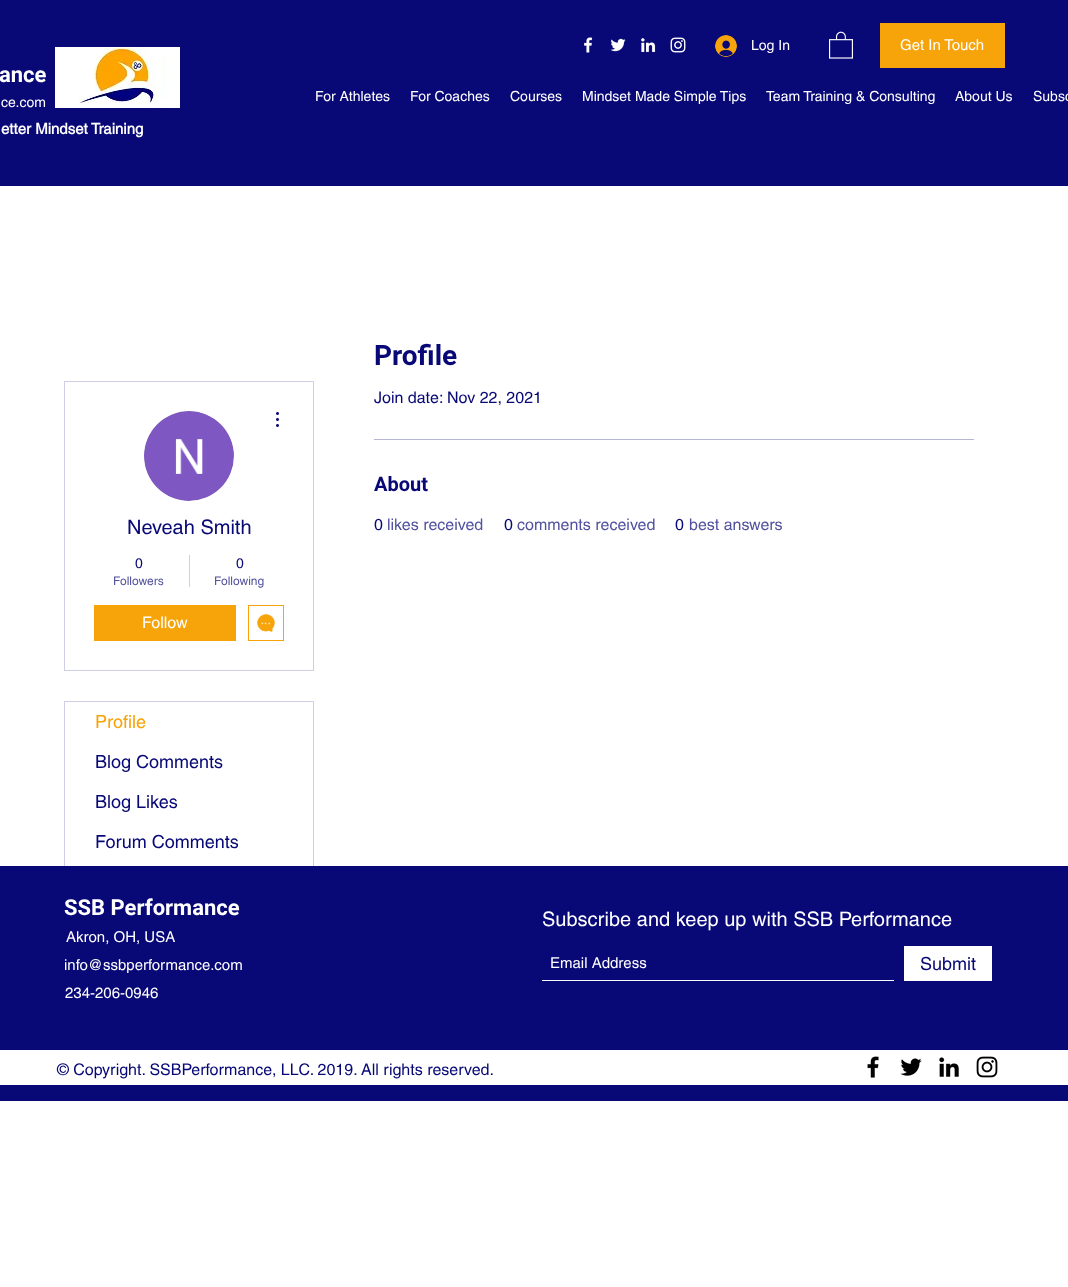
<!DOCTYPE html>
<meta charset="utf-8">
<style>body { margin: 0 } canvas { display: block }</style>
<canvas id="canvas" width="1068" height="1287"></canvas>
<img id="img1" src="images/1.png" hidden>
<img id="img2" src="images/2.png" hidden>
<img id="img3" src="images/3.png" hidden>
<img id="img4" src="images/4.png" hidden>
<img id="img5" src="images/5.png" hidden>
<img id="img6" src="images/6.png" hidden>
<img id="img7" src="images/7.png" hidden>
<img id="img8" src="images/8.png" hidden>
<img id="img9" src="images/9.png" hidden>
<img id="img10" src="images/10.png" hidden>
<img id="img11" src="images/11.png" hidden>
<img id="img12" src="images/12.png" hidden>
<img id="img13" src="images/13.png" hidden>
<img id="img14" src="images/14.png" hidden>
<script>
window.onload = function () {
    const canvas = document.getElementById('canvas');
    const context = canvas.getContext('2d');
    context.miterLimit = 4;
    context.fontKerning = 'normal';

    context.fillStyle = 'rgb(255, 255, 255)';
    context.fillRect(0, 0, 1068, 1287);
    context.fillStyle = 'rgb(8, 8, 118)';
    context.fillRect(0, 0, 1068, 186);
    context.drawImage(document.getElementById('img1'), 55, 47, 125, 61);
    context.drawImage(document.getElementById('img2'), 584, 37, 9, 16);
    context.drawImage(document.getElementById('img3'), 610, 38, 16, 14);
    context.drawImage(document.getElementById('img4'), 641, 38, 15, 15);
    context.drawImage(document.getElementById('img5'), 670, 37, 16, 16);
    context.drawImage(document.getElementById('img6'), 715, 35, 22, 22);
    context.drawImage(document.getElementById('img7'), 829, 31, 24, 28);
    context.fillStyle = 'rgb(247, 164, 11)';
    context.fillRect(880, 23, 125, 45);
    context.fillStyle = 'rgb(181, 181, 214)';
    context.fillRect(374, 439, 600, 1);
    context.strokeStyle = 'rgb(206, 206, 228)';
    context.strokeRect(64.5, 381.5, 249, 289);
    context.fillStyle = 'rgb(216, 216, 216)';
    context.beginPath();
    context.arc(189, 456, 45, 0, 2 * Math.PI);
    context.fill();
    context.drawImage(document.getElementById('img8'), 144, 411, 90, 90);
    context.drawImage(document.getElementById('img9'), 276, 412, 3, 15);
    context.fillStyle = 'rgb(206, 206, 228)';
    context.fillRect(189, 555, 1, 32);
    context.fillStyle = 'rgb(247, 164, 11)';
    context.fillRect(94, 605, 142, 36);
    context.strokeStyle = 'rgb(247, 164, 11)';
    context.strokeRect(248.5, 605.5, 35, 35);
    context.drawImage(document.getElementById('img10'), 257, 614, 18, 18);
    context.strokeStyle = 'rgb(206, 206, 228)';
    context.strokeRect(64.5, 701.5, 249, 201);
    context.fillStyle = 'rgb(8, 8, 118)';
    context.fillRect(0, 866, 1068, 235);
    context.fillStyle = 'rgb(255, 255, 255)';
    context.fillRect(542, 980, 352, 1);
    context.fillRect(904, 946, 88, 35);
    context.fillRect(0, 1050, 1068, 35);
    context.drawImage(document.getElementById('img11'), 867, 1056, 12, 22);
    context.drawImage(document.getElementById('img12'), 900, 1058, 22, 18);
    context.drawImage(document.getElementById('img13'), 939, 1057, 20, 20);
    context.drawImage(document.getElementById('img14'), 976, 1056, 22, 22);
    context.font = 'bold 22px Roboto';
    context.fillText('ance', -1, 82);
    context.font = '14px helvetica';
    context.fillText('Log In', 751, 50);
    context.font = '15px helvetica';
    context.fillText('Get In Touch', 900, 50);
    context.font = '14px helvetica';
    context.fillText('ce.com', 1, 107);
    context.fillText('For Athletes', 315, 101);
    context.fillText('For Coaches', 410, 101);
    context.fillText('Courses', 510, 101);
    context.fillText('Mindset Made Simple Tips', 582, 101);
    context.fillText('Team Training & Consulting', 766, 101);
    context.fillText('About Us', 955, 101);
    context.fillText('Subsc', 1033, 101);
    context.font = 'bold 15px helvetica';
    context.fillText('etter Mindset Training', 1, 134);
    context.font = 'bold 28px Roboto';
    context.fillStyle = 'rgb(8, 8, 118)';
    context.fillText('Profile', 374, 365);
    context.font = '16px helvetica';
    context.fillText('Join date: Nov 22, 2021', 374, 403);
    context.font = 'bold 20px Roboto';
    context.fillText('About', 374, 491);
    context.font = '16px helvetica';
    context.fillText('0', 374, 530);
    context.fillStyle = 'rgb(82, 82, 159)';
    context.fillText('likes received', 387, 530);
    context.fillStyle = 'rgb(8, 8, 118)';
    context.fillText('0', 504, 530);
    context.fillStyle = 'rgb(82, 82, 159)';
    context.fillText('comments received', 517, 530);
    context.fillStyle = 'rgb(8, 8, 118)';
    context.fillText('0', 675, 530);
    context.fillStyle = 'rgb(82, 82, 159)';
    context.fillText('best answers', 689, 530);
    context.font = '20px helvetica';
    context.fillStyle = 'rgb(8, 8, 118)';
    context.fillText('Neveah Smith', 127, 534);
    context.font = '14px helvetica';
    context.fillText('0', 135, 568);
    context.font = '12px helvetica';
    context.fillStyle = 'rgb(82, 82, 159)';
    context.fillText('Followers', 113, 585);
    context.font = '14px helvetica';
    context.fillStyle = 'rgb(8, 8, 118)';
    context.fillText('0', 236, 568);
    context.font = '12px helvetica';
    context.fillStyle = 'rgb(82, 82, 159)';
    context.fillText('Following', 214, 585);
    context.font = '16px helvetica';
    context.fillStyle = 'rgb(255, 255, 255)';
    context.fillText('Follow', 142, 628);
    context.font = '18px helvetica';
    context.fillStyle = 'rgb(247, 164, 11)';
    context.fillText('Profile', 95, 728);
    context.fillStyle = 'rgb(8, 8, 118)';
    context.fillText('Blog Comments', 95, 768);
    context.fillText('Blog Likes', 95, 808);
    context.fillText('Forum Comments', 95, 848);
    context.font = 'bold 22px Roboto';
    context.fillStyle = 'rgb(255, 255, 255)';
    context.fillText('SSB Performance', 64, 915);
    context.font = '15px helvetica';
    context.fillText('Akron, OH, USA', 66, 942);
    context.font = '20px helvetica';
    context.fillText('Subscribe and keep up with SSB Performance', 542, 926);
    context.font = '15px helvetica';
    context.fillText('Email Address', 550, 968);
    context.font = '18px helvetica';
    context.fillStyle = 'rgb(8, 8, 118)';
    context.fillText('Submit', 920, 970);
    context.font = '15px helvetica';
    context.fillStyle = 'rgb(255, 255, 255)';
    context.fillText('info@ssbperformance.com', 64, 970);
    context.fillText('234-206-0946', 65, 998);
    context.font = '16px helvetica';
    context.fillStyle = 'rgb(8, 8, 118)';
    context.fillText('© Copyright. SSBPerformance, LLC. 2019. All rights reserved.', 57, 1075);
};
</script>
